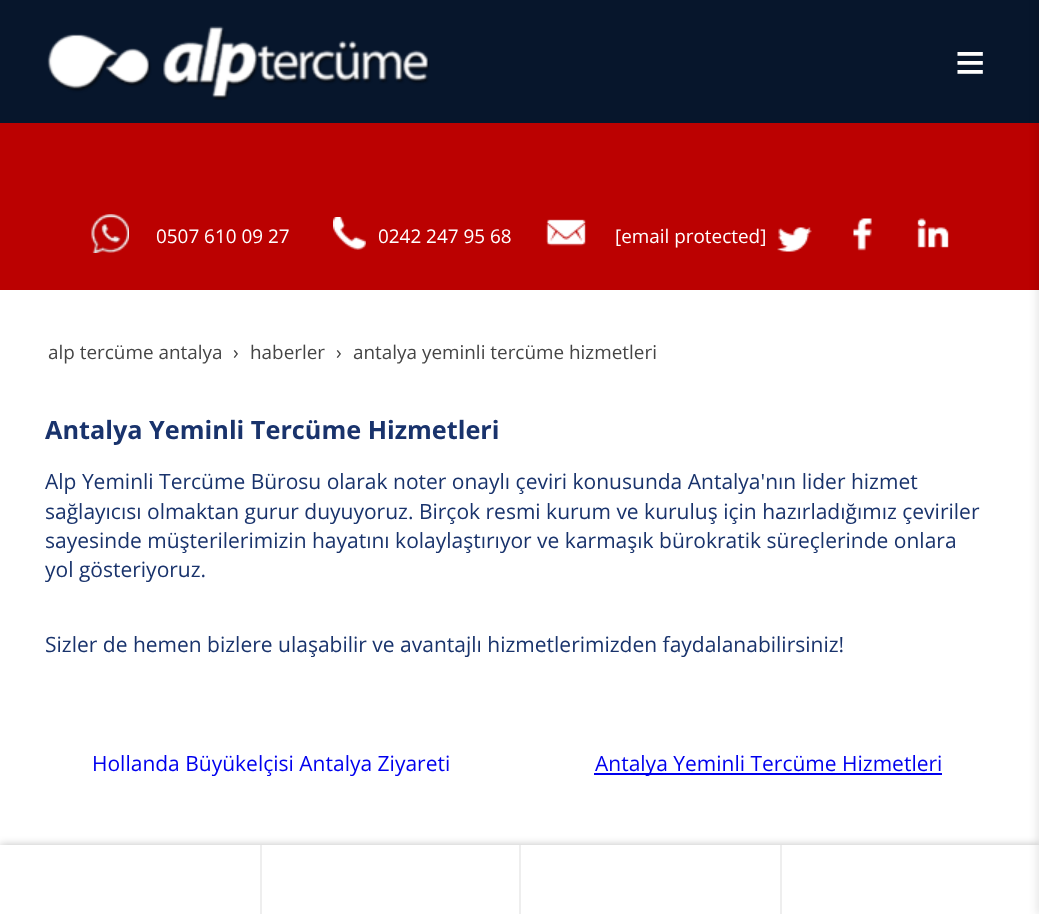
<!DOCTYPE html>
<meta charset="utf-8">
<style>body { margin: 0 } canvas { display: block }</style>
<canvas id="canvas" width="1039" height="914"></canvas>
<img id="img1" src="images/1.png" hidden>
<img id="img2" src="images/2.png" hidden>
<img id="img3" src="images/3.png" hidden>
<img id="img4" src="images/4.png" hidden>
<img id="img5" src="images/5.png" hidden>
<img id="img6" src="images/6.png" hidden>
<img id="img7" src="images/7.png" hidden>
<script>
window.onload = function () {
    const canvas = document.getElementById('canvas');
    const context = canvas.getContext('2d');
    context.miterLimit = 4;
    context.fontKerning = 'normal';

    context.fillStyle = 'rgb(7, 22, 44)';
    context.fillRect(0, 0, 1039, 914);
    context.drawImage(document.getElementById('img1'), 47, 26, 383, 74);
    context.fillStyle = 'rgb(187, 1, 1)';
    context.fillRect(0, 123, 1039, 167);
    context.drawImage(document.getElementById('img2'), 91, 214, 38, 39);
    context.drawImage(document.getElementById('img3'), 333, 217, 33, 33);
    context.drawImage(document.getElementById('img4'), 546, 219, 40, 27);
    context.drawImage(document.getElementById('img5'), 777, 227, 35, 25);
    context.drawImage(document.getElementById('img6'), 853, 218, 19, 33);
    context.drawImage(document.getElementById('img7'), 917, 218, 32, 30);
    context.fillStyle = 'rgb(255, 255, 255)';
    context.fillRect(0, 290, 1039, 555);
    context.fillStyle = 'rgb(0, 0, 238)';
    context.fillRect(594, 773, 348, 2);
    context.fillStyle = 'rgba(0, 0, 0, 0.25)';
    context.filter = 'blur(4px)';
    context.beginPath();
    context.rect(0, 845, 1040, 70);
    context.fill();
    context.filter = 'none';
    context.fillStyle = 'rgb(255, 255, 255)';
    context.fillRect(0, 845, 1039, 69);
    context.fillStyle = 'rgb(238, 238, 238)';
    context.fillRect(260, 845, 2, 69);
    context.fillRect(519, 845, 2, 69);
    context.fillRect(780, 845, 2, 69);
    context.fillStyle = 'rgba(0, 0, 0, 0.1)';
    context.filter = 'blur(4px)';
    context.beginPath();
    context.rect(1037, 0, 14, 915);
    context.fill();
    context.filter = 'none';
    context.font = '52px Liberation Sans';
    context.fillStyle = 'rgb(255, 255, 255)';
    context.fillText('≡', 955, 80);
    context.font = '18.9px Open Sans';
    context.fillText('0507 610 09 27', 156, 243);
    context.fillText('0242 247 95 68', 378, 243);
    context.fillText('[email protected]', 615, 243);
    context.fillStyle = 'rgb(69, 69, 69)';
    context.fillText('alp tercüme antalya', 48, 359);
    context.fillText('›', 233, 359);
    context.fillText('haberler', 250, 359);
    context.fillText('›', 336, 359);
    context.fillText('antalya yeminli tercüme hizmetleri', 353, 359);
    context.font = 'bold 25.25px Open Sans';
    context.fillStyle = 'rgb(25, 51, 108)';
    context.fillText('Antalya Yeminli Tercüme Hizmetleri', 45, 439);
    context.font = '21px Open Sans';
    context.fillText('Alp Yeminli Tercüme Bürosu olarak noter onaylı çeviri konusunda Antalya\'nın lider hizmet', 45, 489);
    context.fillText('sağlayıcısı olmaktan gurur duyuyoruz. Birçok resmi kurum ve kuruluş için hazırladığımız çeviriler', 45, 519);
    context.fillText('sayesinde müşterilerimizin hayatını kolaylaştırıyor ve karmaşık bürokratik süreçlerinde onlara', 45, 548);
    context.fillText('yol gösteriyoruz.', 45, 577);
    context.fillText('Sizler de hemen bizlere ulaşabilir ve avantajlı hizmetlerimizden faydalanabilirsiniz!', 45, 652);
    context.fillStyle = 'rgb(0, 0, 238)';
    context.fillText('Hollanda Büyükelçisi Antalya Ziyareti', 92, 771);
    context.fillText('Antalya Yeminli Tercüme Hizmetleri', 595, 771);
};
</script>
